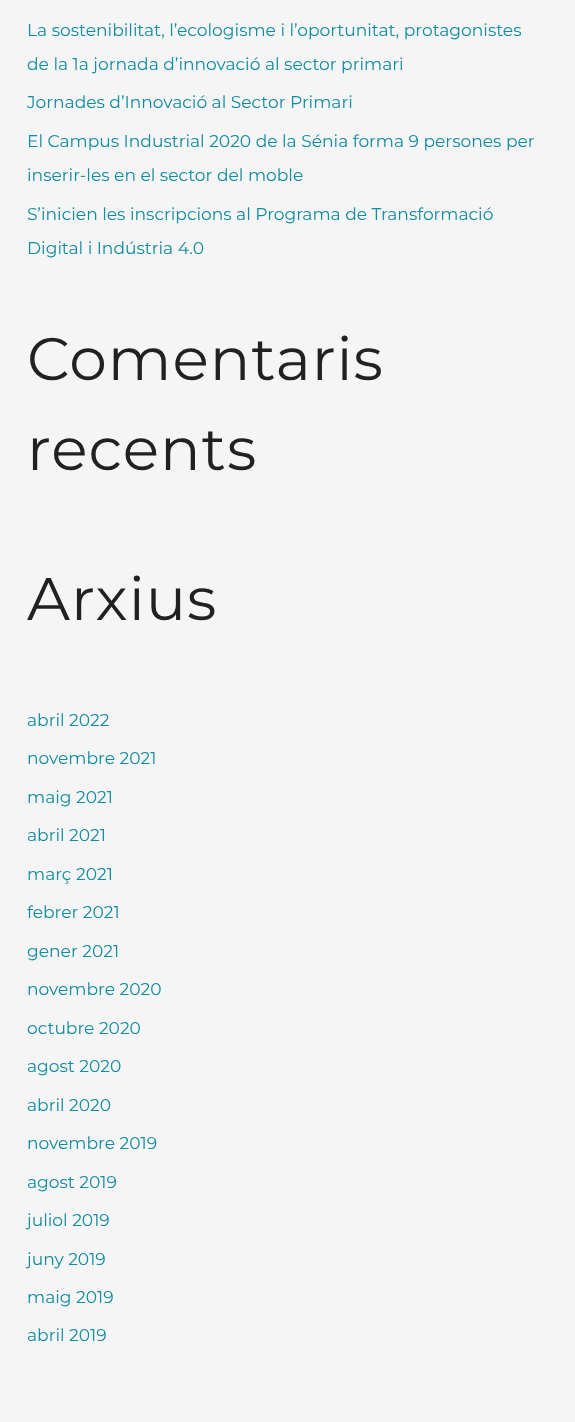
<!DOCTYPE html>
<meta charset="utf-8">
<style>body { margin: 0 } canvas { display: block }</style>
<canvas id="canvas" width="575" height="1422"></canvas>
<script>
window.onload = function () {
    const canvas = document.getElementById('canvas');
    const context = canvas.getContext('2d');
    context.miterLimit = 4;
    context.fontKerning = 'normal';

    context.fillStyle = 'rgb(245, 245, 245)';
    context.fillRect(0, 0, 575, 1422);
    context.font = '17.1px Montserrat';
    context.fillStyle = 'rgb(17, 140, 161)';
    context.fillText('La sostenibilitat, l’ecologisme i l’oportunitat, protagonistes', 27, 36);
    context.fillText('de la 1a jornada d’innovació al sector primari', 27, 70);
    context.fillText('Jornades d’Innovació al Sector Primari', 27, 108);
    context.fillText('El Campus Industrial 2020 de la Sénia forma 9 persones per', 27, 147);
    context.fillText('inserir-les en el sector del moble', 27, 181);
    context.fillText('S’inicien les inscripcions al Programa de Transformació', 27, 220);
    context.fillText('Digital i Indústria 4.0', 27, 254);
    context.letterSpacing = '1px';
    context.font = '60px Montserrat';
    context.fillStyle = 'rgb(34, 32, 32)';
    context.fillText('Comentaris', 27, 380);
    context.fillText('recents', 27, 470);
    context.fillText('Arxius', 27, 620);
    context.letterSpacing = '0px';
    context.font = '17.1px Montserrat';
    context.fillStyle = 'rgb(17, 140, 161)';
    context.fillText('abril 2022', 27, 726);
    context.fillText('novembre 2021', 27, 764);
    context.fillText('maig 2021', 27, 803);
    context.fillText('abril 2021', 27, 841);
    context.fillText('març 2021', 27, 880);
    context.fillText('febrer 2021', 27, 918);
    context.fillText('gener 2021', 27, 957);
    context.fillText('novembre 2020', 27, 995);
    context.fillText('octubre 2020', 27, 1034);
    context.fillText('agost 2020', 27, 1072);
    context.fillText('abril 2020', 27, 1111);
    context.fillText('novembre 2019', 27, 1149);
    context.fillText('agost 2019', 27, 1188);
    context.fillText('juliol 2019', 27, 1226);
    context.fillText('juny 2019', 27, 1265);
    context.fillText('maig 2019', 27, 1303);
    context.fillText('abril 2019', 27, 1341);
};
</script>
